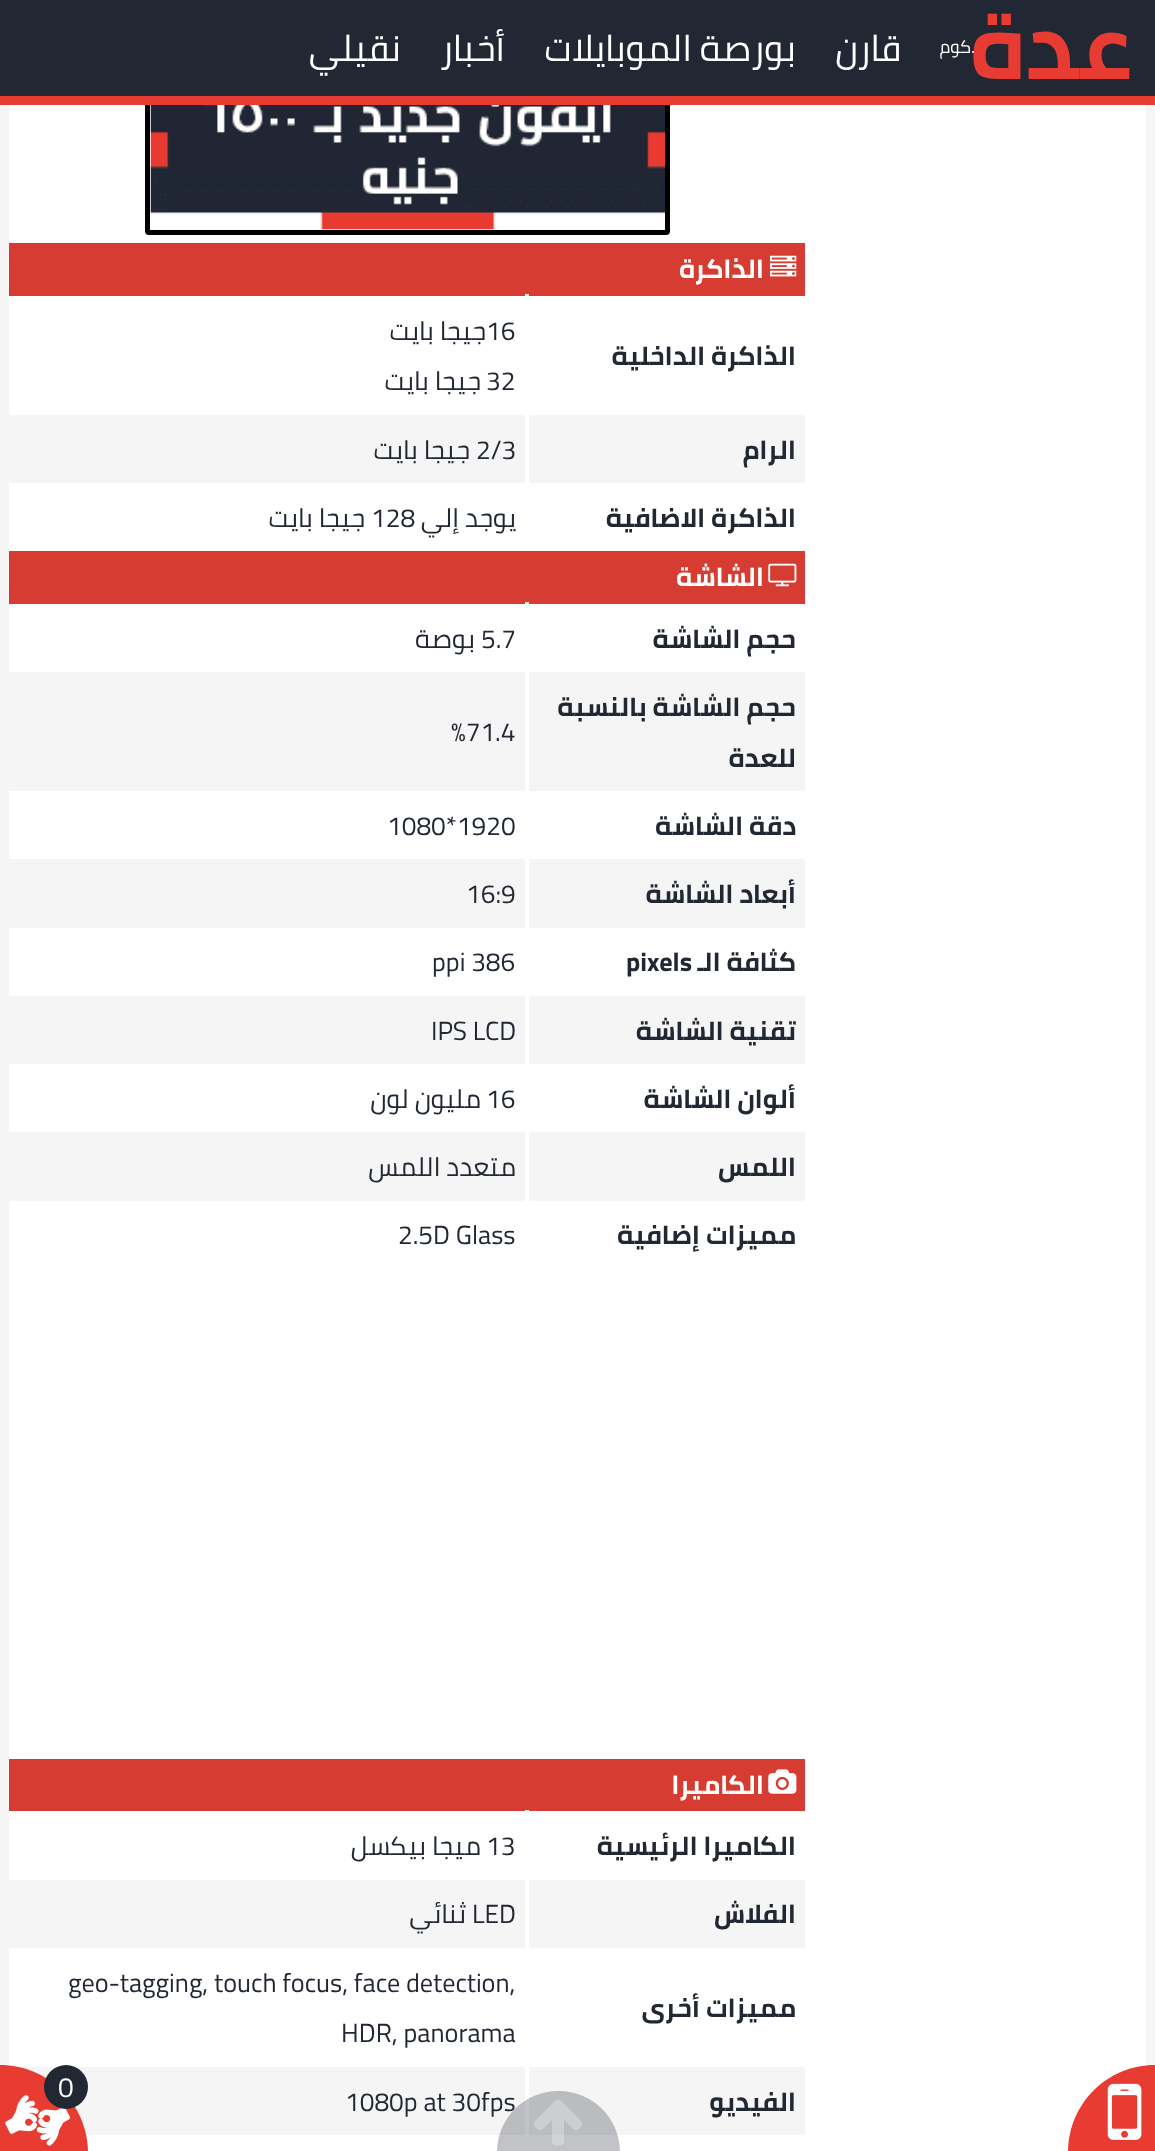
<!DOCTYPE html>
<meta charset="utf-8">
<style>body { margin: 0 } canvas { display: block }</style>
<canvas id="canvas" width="1155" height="2151"></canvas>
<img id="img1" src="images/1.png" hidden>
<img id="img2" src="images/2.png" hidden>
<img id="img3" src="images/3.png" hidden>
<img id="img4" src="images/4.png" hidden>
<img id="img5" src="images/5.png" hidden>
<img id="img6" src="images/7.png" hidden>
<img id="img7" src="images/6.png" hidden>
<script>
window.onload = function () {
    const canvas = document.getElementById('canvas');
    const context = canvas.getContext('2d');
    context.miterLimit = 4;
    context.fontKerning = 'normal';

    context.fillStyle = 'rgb(245, 245, 245)';
    context.fillRect(0, 0, 1155, 2151);
    context.fillStyle = 'rgb(255, 255, 255)';
    context.fillRect(9, 105, 1137, 2046);
    context.beginPath();
    context.roundRect(147.5, -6.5, 520, 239, 1.5);
    context.strokeStyle = 'rgb(0, 0, 0)';
    context.lineWidth = 5;
    context.stroke();
    context.fillStyle = 'rgb(34, 40, 51)';
    context.fillRect(0, 0, 1155, 96);
    context.fillStyle = 'rgb(232, 60, 50)';
    context.fillRect(0, 96, 1155, 9);
    context.beginPath();
    context.moveTo(1155, 2065);
    context.lineTo(1155, 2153);
    context.lineTo(1068, 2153);
    context.lineTo(1068, 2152);
    context.bezierCurveTo(1068, 2104, 1107, 2065, 1155, 2065);
    context.closePath();
    context.fill();
    context.drawImage(document.getElementById('img1'), 1107, 2083, 35, 57);
    context.drawImage(document.getElementById('img2'), 150, 105, 515, 125);
    context.fillStyle = 'rgb(215, 60, 50)';
    context.fillRect(9, 243, 796, 53);
    context.drawImage(document.getElementById('img3'), 770, 255, 27, 22);
    context.fillStyle = 'rgb(255, 255, 255)';
    context.fillRect(525, 294, 4, 2);
    context.fillStyle = 'rgb(245, 245, 245)';
    context.fillRect(9, 415, 796, 68);
    context.fillStyle = 'rgb(255, 255, 255)';
    context.fillRect(525, 413, 4, 72);
    context.fillStyle = 'rgb(215, 60, 50)';
    context.fillRect(9, 551, 796, 53);
    context.drawImage(document.getElementById('img4'), 768, 563, 29, 24);
    context.fillStyle = 'rgb(255, 255, 255)';
    context.fillRect(525, 602, 4, 2);
    context.fillStyle = 'rgb(245, 245, 245)';
    context.fillRect(9, 672, 796, 119);
    context.fillStyle = 'rgb(255, 255, 255)';
    context.fillRect(525, 670, 4, 123);
    context.fillStyle = 'rgb(245, 245, 245)';
    context.fillRect(9, 859, 796, 69);
    context.fillStyle = 'rgb(255, 255, 255)';
    context.fillRect(525, 858, 4, 71);
    context.fillStyle = 'rgb(245, 245, 245)';
    context.fillRect(9, 996, 796, 68);
    context.fillStyle = 'rgb(255, 255, 255)';
    context.fillRect(525, 994, 4, 72);
    context.fillStyle = 'rgb(245, 245, 245)';
    context.fillRect(9, 1132, 796, 69);
    context.fillStyle = 'rgb(255, 255, 255)';
    context.fillRect(525, 1131, 4, 71);
    context.fillStyle = 'rgb(215, 60, 50)';
    context.fillRect(9, 1759, 796, 52);
    context.drawImage(document.getElementById('img5'), 768, 1769, 29, 25);
    context.fillStyle = 'rgb(255, 255, 255)';
    context.fillRect(525, 1810, 4, 1);
    context.fillStyle = 'rgb(245, 245, 245)';
    context.fillRect(9, 1880, 796, 68);
    context.fillStyle = 'rgb(255, 255, 255)';
    context.fillRect(525, 1878, 4, 72);
    context.fillStyle = 'rgb(245, 245, 245)';
    context.fillRect(18, 2067, 787, 68);
    context.fillStyle = 'rgb(255, 255, 255)';
    context.fillRect(525, 2065, 4, 72);
    context.fillStyle = 'rgb(232, 60, 50)';
    context.beginPath();
    context.moveTo(0, 2065);
    context.bezierCurveTo(48.5, 2065, 88, 2104.5, 88, 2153);
    context.lineTo(0, 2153);
    context.closePath();
    context.fill();
    context.drawImage(document.getElementById('img6'), 5, 2095, 65, 51);
    context.fillStyle = 'rgb(34, 40, 51)';
    context.beginPath();
    context.arc(66, 2087, 22, 0, 2 * Math.PI);
    context.fill();
    context.letterSpacing = '-2px';
    context.direction = 'rtl';
    context.font = 'bold 91px Cairo';
    context.fillStyle = 'rgb(232, 60, 50)';
    context.fillText('عدة', 1132, 79);
    context.letterSpacing = '0px';
    context.font = '18px Cairo';
    context.fillStyle = 'rgb(255, 255, 255)';
    context.fillText('.كوم', 975, 53);
    context.font = '36.5px Cairo';
    context.fillText('قارن', 901, 61);
    context.fillText('بورصة الموبايلات', 796, 61);
    context.fillText('أخبار', 505, 61);
    context.fillText('نقيلي', 401, 61);
    context.font = 'bold 26.25px Cairo';
    context.fillText('الذاكرة', 764, 278);
    context.fillStyle = 'rgb(34, 40, 51)';
    context.fillText('الذاكرة الداخلية', 796, 365);
    context.direction = 'ltr';
    context.font = '26.25px Cairo';
    context.fillText('16', 486, 340);
    context.direction = 'rtl';
    context.fillText('جيجا بايت', 486, 340);
    context.direction = 'ltr';
    context.fillText('32', 486, 390);
    context.direction = 'rtl';
    context.fillText('جيجا بايت', 481, 390);
    context.font = 'bold 26.25px Cairo';
    context.fillText('الرام', 796, 459);
    context.direction = 'ltr';
    context.font = '26.25px Cairo';
    context.fillText('2/3', 476, 459);
    context.direction = 'rtl';
    context.fillText('جيجا بايت', 470, 459);
    context.font = 'bold 26.25px Cairo';
    context.fillText('الذاكرة الاضافية', 796, 527);
    context.font = '26.25px Cairo';
    context.fillText('يوجد إلي', 516, 527);
    context.direction = 'ltr';
    context.fillText('128', 371, 527);
    context.direction = 'rtl';
    context.fillText('جيجا بايت', 365, 527);
    context.font = 'bold 26.25px Cairo';
    context.fillStyle = 'rgb(255, 255, 255)';
    context.fillText('الشاشة', 764, 586);
    context.fillStyle = 'rgb(34, 40, 51)';
    context.fillText('حجم الشاشة', 796, 648);
    context.direction = 'ltr';
    context.font = '26.25px Cairo';
    context.fillText('5.7', 481, 648);
    context.direction = 'rtl';
    context.fillText('بوصة', 475, 648);
    context.font = 'bold 26.25px Cairo';
    context.fillText('حجم الشاشة بالنسبة', 796, 716);
    context.fillText('للعدة', 796, 767);
    context.direction = 'ltr';
    context.font = '26.25px Cairo';
    context.fillText('%71.4', 451, 741);
    context.direction = 'rtl';
    context.font = 'bold 26.25px Cairo';
    context.fillText('دقة الشاشة', 796, 835);
    context.direction = 'ltr';
    context.font = '26.25px Cairo';
    context.fillText('1080*1920', 387, 835);
    context.direction = 'rtl';
    context.font = 'bold 26.25px Cairo';
    context.fillText('أبعاد الشاشة', 796, 903);
    context.direction = 'ltr';
    context.font = '26.25px Cairo';
    context.fillText('16:9', 466, 903);
    context.direction = 'rtl';
    context.font = 'bold 26.25px Cairo';
    context.fillText('كثافة الـ', 796, 971);
    context.direction = 'ltr';
    context.fillText('pixels', 626, 971);
    context.font = '26.25px Cairo';
    context.fillText('ppi 386', 432, 971);
    context.direction = 'rtl';
    context.font = 'bold 26.25px Cairo';
    context.fillText('تقنية الشاشة', 796, 1040);
    context.direction = 'ltr';
    context.font = '26.25px Cairo';
    context.fillText('IPS LCD', 431, 1040);
    context.direction = 'rtl';
    context.font = 'bold 26.25px Cairo';
    context.fillText('ألوان الشاشة', 796, 1108);
    context.direction = 'ltr';
    context.font = '26.25px Cairo';
    context.fillText('16', 486, 1108);
    context.direction = 'rtl';
    context.fillText('مليون لون', 481, 1108);
    context.font = 'bold 26.25px Cairo';
    context.fillText('اللمس', 796, 1176);
    context.font = '26.25px Cairo';
    context.fillText('متعدد اللمس', 516, 1176);
    context.font = 'bold 26.25px Cairo';
    context.fillText('مميزات إضافية', 796, 1244);
    context.direction = 'ltr';
    context.font = '26.25px Cairo';
    context.fillText('2.5D Glass', 398, 1244);
    context.direction = 'rtl';
    context.font = 'bold 26.25px Cairo';
    context.fillStyle = 'rgb(255, 255, 255)';
    context.fillText('الكاميرا', 764, 1794);
    context.fillStyle = 'rgb(34, 40, 51)';
    context.fillText('الكاميرا الرئيسية', 796, 1855);
    context.direction = 'ltr';
    context.font = '26.25px Cairo';
    context.fillText('13', 486, 1855);
    context.direction = 'rtl';
    context.fillText('ميجا بيكسل', 481, 1855);
    context.font = 'bold 26.25px Cairo';
    context.fillText('الفلاش', 796, 1923);
    context.direction = 'ltr';
    context.font = '26.25px Cairo';
    context.fillText('LED', 472, 1923);
    context.direction = 'rtl';
    context.fillText('ثنائي', 466, 1923);
    context.font = 'bold 26.25px Cairo';
    context.fillText('مميزات أخرى', 796, 2017);
    context.direction = 'ltr';
    context.font = '26.25px Cairo';
    context.fillText('geo-tagging, touch focus, face detection,', 68, 1992);
    context.fillText('HDR, panorama', 341, 2042);
    context.direction = 'rtl';
    context.font = 'bold 26.25px Cairo';
    context.fillText('الفيديو', 796, 2111);
    context.direction = 'ltr';
    context.font = '26.25px Cairo';
    context.fillText('1080p at 30fps', 345, 2111);
    context.fillStyle = 'rgba(34, 40, 51, 0.28)';
    context.beginPath();
    context.moveTo(558, 2091);
    context.lineTo(559, 2091);
    context.bezierCurveTo(592.5, 2091, 620, 2118.5, 620, 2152);
    context.lineTo(620, 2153);
    context.lineTo(497, 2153);
    context.lineTo(497, 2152);
    context.bezierCurveTo(497, 2118.5, 524.5, 2091, 558, 2091);
    context.closePath();
    context.fill();
    context.drawImage(document.getElementById('img7'), 533, 2099, 50, 47);
    context.font = '28px Cairo';
    context.fillStyle = 'rgb(255, 255, 255)';
    context.fillText('0', 58, 2097);
};
</script>
